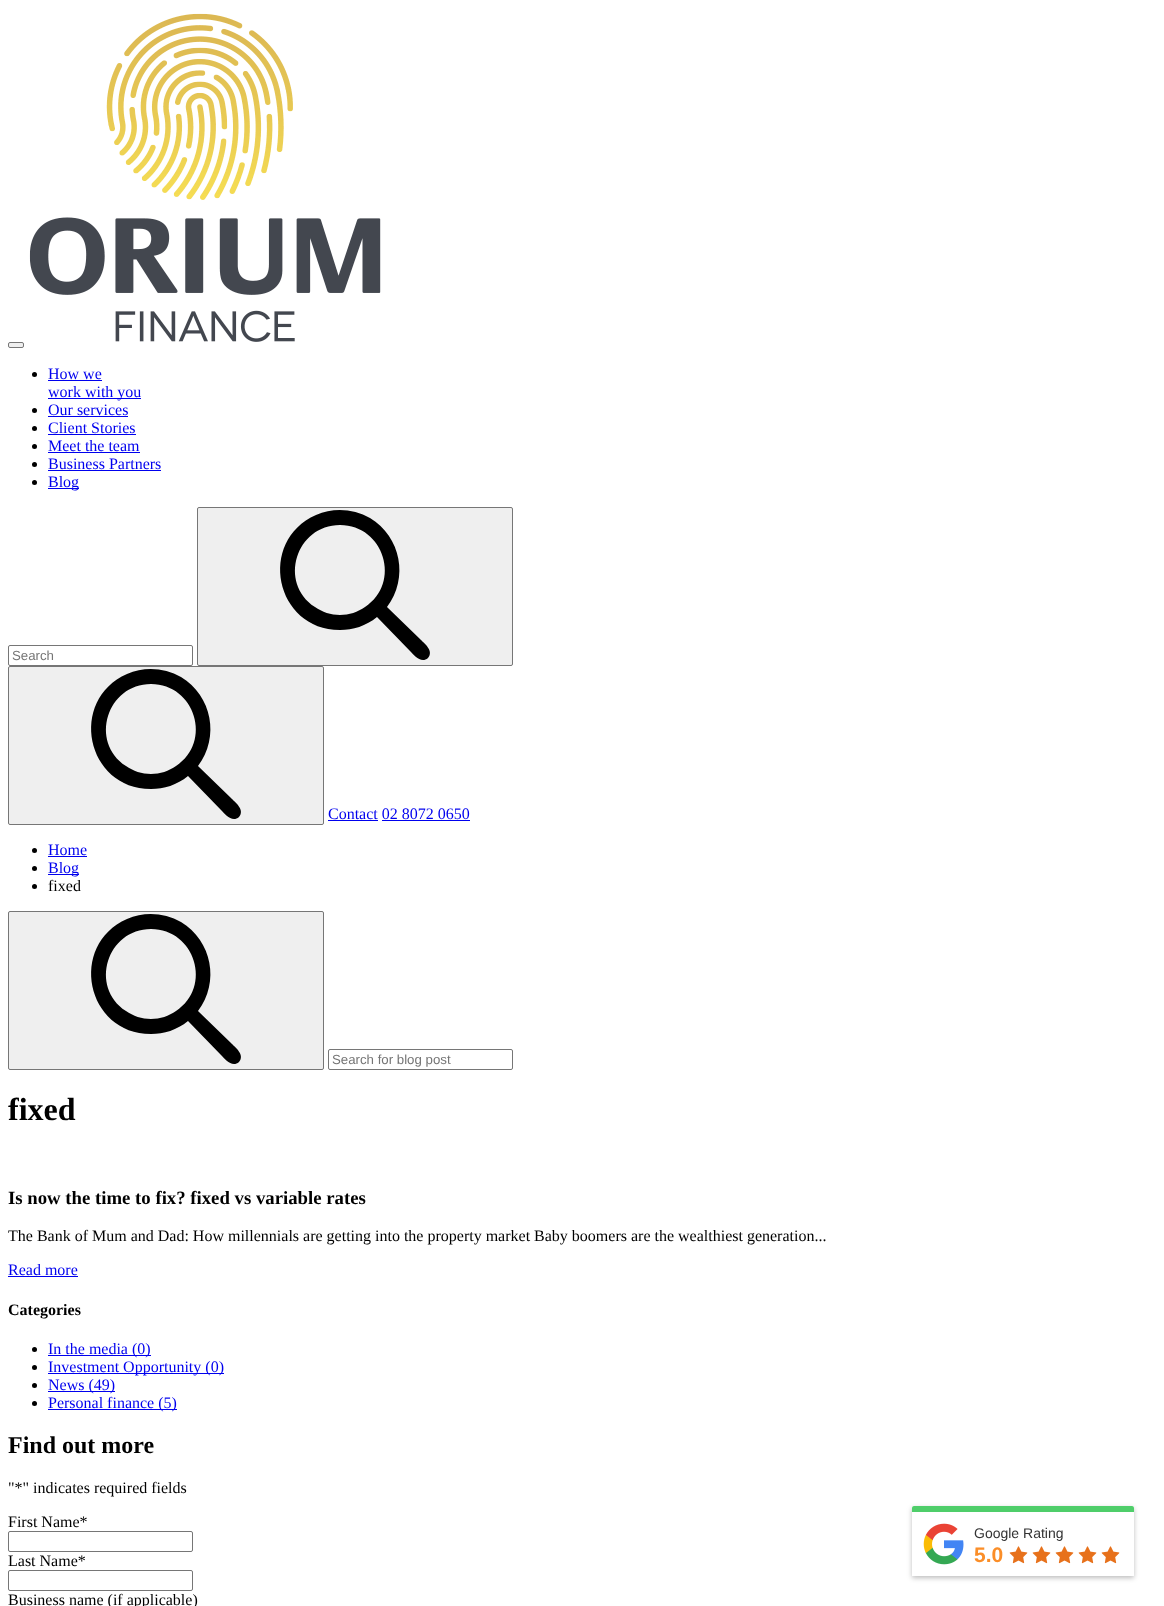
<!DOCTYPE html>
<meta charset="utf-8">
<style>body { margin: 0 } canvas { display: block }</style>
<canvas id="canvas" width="1164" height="1606"></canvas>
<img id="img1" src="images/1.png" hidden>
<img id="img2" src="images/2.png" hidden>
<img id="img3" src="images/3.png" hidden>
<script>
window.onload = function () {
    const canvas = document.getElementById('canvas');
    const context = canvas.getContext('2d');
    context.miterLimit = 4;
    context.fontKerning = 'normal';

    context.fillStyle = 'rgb(255, 255, 255)';
    context.fillRect(0, 0, 1164, 1606);
    context.drawImage(document.getElementById('img1'), 29, 13, 352, 329);
    context.fillStyle = 'rgb(239, 239, 239)';
    context.beginPath();
    context.roundRect(8.5, 342.5, 15, 5, 1.5);
    context.fill();
    context.strokeStyle = 'rgb(118, 118, 118)';
    context.stroke();
    context.fillStyle = 'rgb(0, 0, 0)';
    context.beginPath();
    context.arc(34.5, 374.5, 2.5, 0, 2 * Math.PI);
    context.fill();
    context.fillStyle = 'rgb(0, 0, 238)';
    context.fillRect(48, 380, 54, 1);
    context.fillRect(48, 398, 93, 1);
    context.fillStyle = 'rgb(0, 0, 0)';
    context.beginPath();
    context.arc(34.5, 410.5, 2.5, 0, 2 * Math.PI);
    context.fill();
    context.fillStyle = 'rgb(0, 0, 238)';
    context.fillRect(48, 416, 80, 1);
    context.fillStyle = 'rgb(0, 0, 0)';
    context.beginPath();
    context.arc(34.5, 428.5, 2.5, 0, 2 * Math.PI);
    context.fill();
    context.fillStyle = 'rgb(0, 0, 238)';
    context.fillRect(48, 434, 88, 1);
    context.fillStyle = 'rgb(0, 0, 0)';
    context.beginPath();
    context.arc(34.5, 446.5, 2.5, 0, 2 * Math.PI);
    context.fill();
    context.fillStyle = 'rgb(0, 0, 238)';
    context.fillRect(48, 452, 92, 1);
    context.fillStyle = 'rgb(0, 0, 0)';
    context.beginPath();
    context.arc(34.5, 464.5, 2.5, 0, 2 * Math.PI);
    context.fill();
    context.fillStyle = 'rgb(0, 0, 238)';
    context.fillRect(48, 470, 113, 1);
    context.fillStyle = 'rgb(0, 0, 0)';
    context.beginPath();
    context.arc(34.5, 482.5, 2.5, 0, 2 * Math.PI);
    context.fill();
    context.fillStyle = 'rgb(0, 0, 238)';
    context.fillRect(48, 488, 31, 1);
    context.beginPath();
    context.roundRect(8.5, 645.5, 184, 20, 1.5);
    context.stroke();
    context.fillStyle = 'rgb(239, 239, 239)';
    context.beginPath();
    context.roundRect(197.5, 507.5, 315, 158, 1.5);
    context.fill();
    context.stroke();
    context.fillStyle = 'rgb(0, 0, 0)';
    context.beginPath();
    context.moveTo(387, 607);
    context.lineTo(421, 640);
    context.bezierCurveTo(425, 644, 434, 651, 428, 658);
    context.bezierCurveTo(421, 664, 414, 655, 410, 651);
    context.lineTo(377, 617);
    context.bezierCurveTo(366, 626, 353, 630, 340, 630);
    context.bezierCurveTo(275, 630, 257, 541, 316, 515);
    context.bezierCurveTo(334, 507, 354, 509, 370, 518);
    context.bezierCurveTo(401, 537, 409, 578, 387, 607);
    context.closePath();
    context.moveTo(340, 615);
    context.bezierCurveTo(349, 615, 358, 612, 365, 607);
    context.bezierCurveTo(402, 583, 384, 525, 340, 525);
    context.bezierCurveTo(296, 525, 278, 583, 315, 607);
    context.bezierCurveTo(322, 612, 331, 615, 340, 615);
    context.closePath();
    context.fill('evenodd');
    context.fillStyle = 'rgb(239, 239, 239)';
    context.beginPath();
    context.roundRect(8.5, 666.5, 315, 158, 1.5);
    context.fill();
    context.stroke();
    context.fillStyle = 'rgb(0, 0, 0)';
    context.beginPath();
    context.moveTo(198, 766);
    context.lineTo(232, 799);
    context.bezierCurveTo(236, 803, 245, 810, 239, 817);
    context.bezierCurveTo(232, 823, 225, 814, 221, 810);
    context.lineTo(188, 776);
    context.bezierCurveTo(177, 785, 164, 789, 151, 789);
    context.bezierCurveTo(86, 789, 68, 700, 127, 674);
    context.bezierCurveTo(145, 666, 165, 668, 181, 677);
    context.bezierCurveTo(212, 696, 220, 737, 198, 766);
    context.closePath();
    context.moveTo(151, 774);
    context.bezierCurveTo(160, 774, 169, 771, 176, 766);
    context.bezierCurveTo(213, 742, 195, 684, 151, 684);
    context.bezierCurveTo(107, 684, 89, 742, 126, 766);
    context.bezierCurveTo(133, 771, 142, 774, 151, 774);
    context.closePath();
    context.fill('evenodd');
    context.fillStyle = 'rgb(0, 0, 238)';
    context.fillRect(328, 820, 50, 1);
    context.fillRect(382, 820, 88, 1);
    context.fillStyle = 'rgb(0, 0, 0)';
    context.beginPath();
    context.arc(34.5, 850.5, 2.5, 0, 2 * Math.PI);
    context.fill();
    context.fillStyle = 'rgb(0, 0, 238)';
    context.fillRect(48, 856, 39, 1);
    context.fillStyle = 'rgb(0, 0, 0)';
    context.beginPath();
    context.arc(34.5, 868.5, 2.5, 0, 2 * Math.PI);
    context.fill();
    context.fillStyle = 'rgb(0, 0, 238)';
    context.fillRect(48, 874, 31, 1);
    context.fillStyle = 'rgb(0, 0, 0)';
    context.beginPath();
    context.arc(34.5, 886.5, 2.5, 0, 2 * Math.PI);
    context.fill();
    context.fillStyle = 'rgb(239, 239, 239)';
    context.beginPath();
    context.roundRect(8.5, 911.5, 315, 158, 1.5);
    context.fill();
    context.stroke();
    context.fillStyle = 'rgb(0, 0, 0)';
    context.beginPath();
    context.moveTo(198, 1011);
    context.lineTo(232, 1044);
    context.bezierCurveTo(236, 1048, 245, 1055, 239, 1062);
    context.bezierCurveTo(232, 1068, 225, 1059, 221, 1055);
    context.lineTo(188, 1021);
    context.bezierCurveTo(177, 1030, 164, 1034, 151, 1034);
    context.bezierCurveTo(86, 1034, 68, 945, 127, 919);
    context.bezierCurveTo(145, 911, 165, 913, 181, 922);
    context.bezierCurveTo(212, 941, 220, 982, 198, 1011);
    context.closePath();
    context.moveTo(151, 1019);
    context.bezierCurveTo(160, 1019, 169, 1016, 176, 1011);
    context.bezierCurveTo(213, 987, 195, 929, 151, 929);
    context.bezierCurveTo(107, 929, 89, 987, 126, 1011);
    context.bezierCurveTo(133, 1016, 142, 1019, 151, 1019);
    context.closePath();
    context.fill('evenodd');
    context.beginPath();
    context.roundRect(328.5, 1049.5, 184, 20, 1.5);
    context.stroke();
    context.fillStyle = 'rgb(0, 0, 238)';
    context.fillRect(8, 1276, 70, 1);
    context.fillStyle = 'rgb(0, 0, 0)';
    context.beginPath();
    context.arc(34.5, 1349.5, 2.5, 0, 2 * Math.PI);
    context.fill();
    context.fillStyle = 'rgb(0, 0, 238)';
    context.fillRect(48, 1355, 103, 1);
    context.fillStyle = 'rgb(0, 0, 0)';
    context.beginPath();
    context.arc(34.5, 1367.5, 2.5, 0, 2 * Math.PI);
    context.fill();
    context.fillStyle = 'rgb(0, 0, 238)';
    context.fillRect(48, 1373, 176, 1);
    context.fillStyle = 'rgb(0, 0, 0)';
    context.beginPath();
    context.arc(34.5, 1385.5, 2.5, 0, 2 * Math.PI);
    context.fill();
    context.fillStyle = 'rgb(0, 0, 238)';
    context.fillRect(48, 1391, 67, 1);
    context.fillStyle = 'rgb(0, 0, 0)';
    context.beginPath();
    context.arc(34.5, 1403.5, 2.5, 0, 2 * Math.PI);
    context.fill();
    context.fillStyle = 'rgb(0, 0, 238)';
    context.fillRect(48, 1409, 129, 1);
    context.beginPath();
    context.roundRect(8.5, 1531.5, 184, 20, 1.5);
    context.stroke();
    context.beginPath();
    context.roundRect(8.5, 1570.5, 184, 20, 1.5);
    context.stroke();
    context.save();
    context.beginPath();
    context.moveTo(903, 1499);
    context.lineTo(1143, 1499);
    context.lineTo(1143, 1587);
    context.lineTo(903, 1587);
    context.closePath();
    context.moveTo(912, 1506);
    context.lineTo(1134, 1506);
    context.lineTo(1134, 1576);
    context.lineTo(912, 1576);
    context.closePath();
    context.clip('evenodd');
    context.fillStyle = 'rgba(0, 0, 0, 0.26)';
    context.filter = 'blur(2.5px)';
    context.beginPath();
    context.rect(912, 1508, 222, 70);
    context.fill();
    context.filter = 'none';
    context.restore();
    context.fillStyle = 'rgb(79, 206, 106)';
    context.beginPath();
    context.roundRect(912, 1506, 222, 6, [2, 2, 0, 0]);
    context.fill();
    context.drawImage(document.getElementById('img2'), 923, 1523, 41, 42);
    context.drawImage(document.getElementById('img3'), 1009, 1546, 19, 18);
    context.drawImage(document.getElementById('img3'), 1032, 1546, 19, 18);
    context.drawImage(document.getElementById('img3'), 1055, 1546, 19, 18);
    context.drawImage(document.getElementById('img3'), 1078, 1546, 19, 18);
    context.drawImage(document.getElementById('img3'), 1101, 1546, 19, 18);
    context.font = '16px Liberation Serif';
    context.fillStyle = 'rgb(0, 0, 238)';
    context.fillText('How we', 48, 379);
    context.fillText('work with you', 48, 397);
    context.fillText('Our services', 48, 415);
    context.fillText('Client Stories', 48, 433);
    context.fillText('Meet the team', 48, 451);
    context.fillText('Business Partners', 48, 469);
    context.fillText('Blog', 48, 487);
    context.font = '13.25px Liberation Sans';
    context.fillStyle = 'rgb(117, 117, 117)';
    context.fillText('Search', 12, 660);
    context.font = '16px Liberation Serif';
    context.fillStyle = 'rgb(0, 0, 238)';
    context.fillText('Contact 02 8072 0650', 328, 819);
    context.fillText('Home', 48, 855);
    context.fillText('Blog', 48, 873);
    context.fillStyle = 'rgb(0, 0, 0)';
    context.fillText('fixed', 48, 891);
    context.font = '13.25px Liberation Sans';
    context.fillStyle = 'rgb(117, 117, 117)';
    context.fillText('Search for blog post', 332, 1064);
    context.font = 'bold 32px Liberation Serif';
    context.fillStyle = 'rgb(0, 0, 0)';
    context.fillText('fixed', 8, 1120);
    context.font = 'bold 18.75px Liberation Serif';
    context.fillText('Is now the time to fix? fixed vs variable rates', 8, 1204);
    context.font = '16px Liberation Serif';
    context.fillText('The Bank of Mum and Dad: How millennials are getting into the property market Baby boomers are the wealthiest generation...', 8, 1241);
    context.fillStyle = 'rgb(0, 0, 238)';
    context.fillText('Read more', 8, 1275);
    context.font = 'bold 16px Liberation Serif';
    context.fillStyle = 'rgb(0, 0, 0)';
    context.fillText('Categories', 8, 1315);
    context.font = '16px Liberation Serif';
    context.fillStyle = 'rgb(0, 0, 238)';
    context.fillText('In the media (0)', 48, 1354);
    context.fillText('Investment Opportunity (0)', 48, 1372);
    context.fillText('News (49)', 48, 1390);
    context.fillText('Personal finance (5)', 48, 1408);
    context.font = 'bold 24px Liberation Serif';
    context.fillStyle = 'rgb(0, 0, 0)';
    context.fillText('Find out more', 8, 1453);
    context.font = '16px Liberation Serif';
    context.fillText('"*" indicates required fields', 8, 1493);
    context.fillText('First Name*', 8, 1527);
    context.fillText('Last Name*', 8, 1566);
    context.fillText('Business name (if applicable)', 8, 1605);
    context.font = '14px Liberation Sans';
    context.fillStyle = 'rgb(51, 51, 51)';
    context.fillText('Google Rating', 974, 1538);
    context.font = 'bold 21px Liberation Sans';
    context.fillStyle = 'rgb(251, 142, 40)';
    context.fillText('5.0', 974, 1562);
};
</script>
